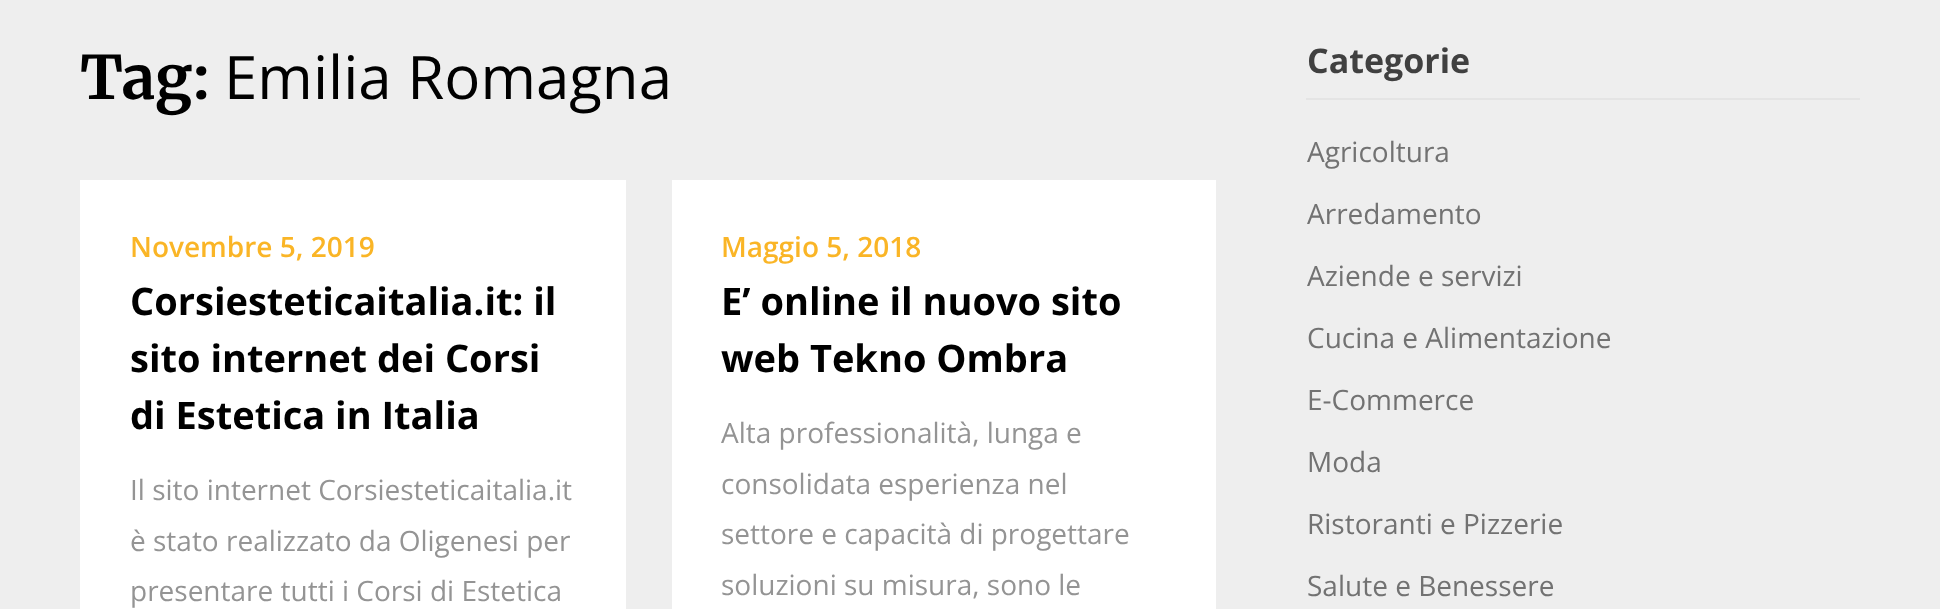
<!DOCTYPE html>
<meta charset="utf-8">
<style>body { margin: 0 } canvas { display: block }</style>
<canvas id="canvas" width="1940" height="609"></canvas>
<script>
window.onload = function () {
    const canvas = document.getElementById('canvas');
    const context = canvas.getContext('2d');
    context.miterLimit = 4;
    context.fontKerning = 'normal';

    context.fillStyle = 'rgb(238, 238, 238)';
    context.fillRect(0, 0, 1940, 609);
    context.fillStyle = 'rgb(255, 255, 255)';
    context.fillRect(80, 180, 546, 429);
    context.fillRect(672, 180, 544, 429);
    context.fillStyle = 'rgb(228, 228, 228)';
    context.fillRect(1306, 98, 554, 2);
    context.font = 'bold 60px Merriweather';
    context.fillStyle = 'rgb(0, 0, 0)';
    context.fillText('Tag:', 80, 99);
    context.font = '60px Open Sans';
    context.fillText('Emilia Romagna', 224, 99);
    context.font = '600 28px Open Sans';
    context.fillStyle = 'rgb(250, 181, 38)';
    context.fillText('Novembre 5, 2019', 130, 257);
    context.font = 'bold 38px Open Sans';
    context.fillStyle = 'rgb(0, 0, 0)';
    context.fillText('Corsiesteticaitalia.it: il', 130, 315);
    context.fillText('sito internet dei Corsi', 130, 372);
    context.fillText('di Estetica in Italia', 130, 429);
    context.font = '28px Open Sans';
    context.fillStyle = 'rgb(148, 148, 148)';
    context.fillText('Il sito internet Corsiesteticaitalia.it', 130, 500);
    context.fillText('è stato realizzato da Oligenesi per', 130, 551);
    context.fillText('presentare tutti i Corsi di Estetica', 130, 601);
    context.font = '600 28px Open Sans';
    context.fillStyle = 'rgb(250, 181, 38)';
    context.fillText('Maggio 5, 2018', 721, 257);
    context.font = 'bold 38px Open Sans';
    context.fillStyle = 'rgb(0, 0, 0)';
    context.fillText('E’ online il nuovo sito', 721, 315);
    context.fillText('web Tekno Ombra', 721, 372);
    context.font = '28px Open Sans';
    context.fillStyle = 'rgb(148, 148, 148)';
    context.fillText('Alta professionalità, lunga e', 721, 443);
    context.fillText('consolidata esperienza nel', 721, 494);
    context.fillText('settore e capacità di progettare', 721, 544);
    context.fillText('soluzioni su misura, sono le', 721, 595);
    context.font = 'bold 34px Open Sans';
    context.fillStyle = 'rgb(64, 64, 64)';
    context.fillText('Categorie', 1307, 73);
    context.font = '28px Open Sans';
    context.fillStyle = 'rgb(114, 114, 114)';
    context.fillText('Agricoltura', 1307, 162);
    context.fillText('Arredamento', 1307, 224);
    context.fillText('Aziende e servizi', 1307, 286);
    context.fillText('Cucina e Alimentazione', 1307, 348);
    context.fillText('E-Commerce', 1307, 410);
    context.fillText('Moda', 1307, 472);
    context.fillText('Ristoranti e Pizzerie', 1307, 534);
    context.fillText('Salute e Benessere', 1307, 596);
};
</script>
